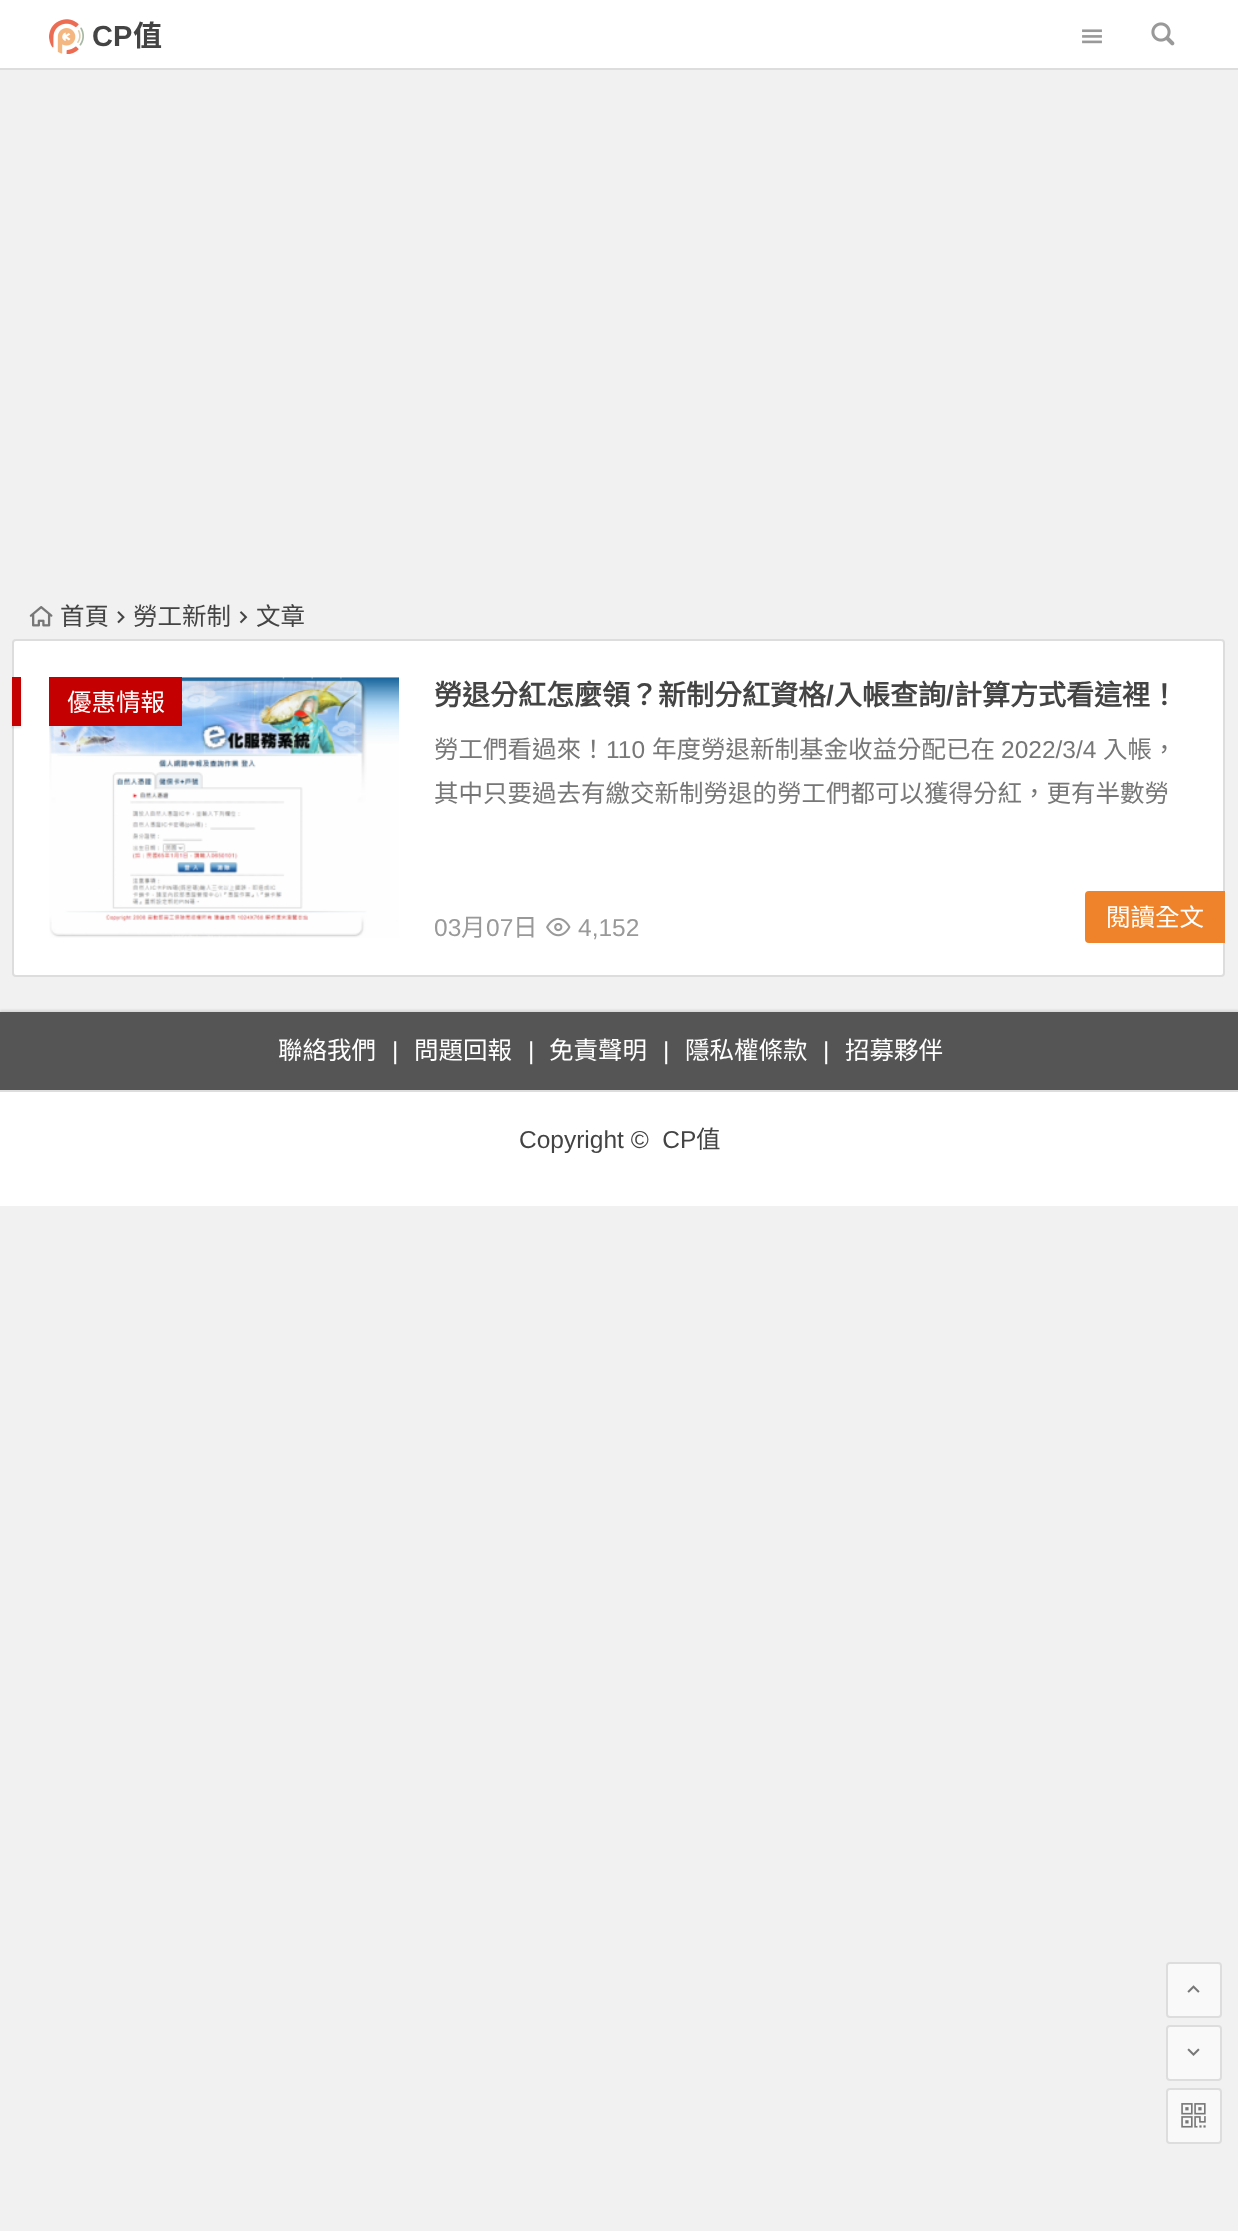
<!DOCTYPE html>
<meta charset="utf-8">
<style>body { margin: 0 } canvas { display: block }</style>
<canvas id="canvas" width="1238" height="2231"></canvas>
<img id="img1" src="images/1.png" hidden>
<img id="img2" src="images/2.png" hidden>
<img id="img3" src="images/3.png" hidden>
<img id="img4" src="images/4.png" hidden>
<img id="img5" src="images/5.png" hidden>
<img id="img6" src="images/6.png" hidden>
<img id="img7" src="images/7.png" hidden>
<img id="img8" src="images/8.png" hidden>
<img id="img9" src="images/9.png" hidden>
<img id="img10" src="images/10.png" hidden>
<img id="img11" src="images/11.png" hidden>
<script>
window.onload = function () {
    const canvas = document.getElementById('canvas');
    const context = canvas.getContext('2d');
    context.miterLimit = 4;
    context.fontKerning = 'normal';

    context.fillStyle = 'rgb(241, 241, 241)';
    context.fillRect(0, 0, 1238, 2231);
    context.fillStyle = 'rgb(255, 255, 255)';
    context.fillRect(0, 0, 1238, 68);
    context.fillStyle = 'rgb(221, 221, 221)';
    context.fillRect(0, 68, 1238, 2);
    context.drawImage(document.getElementById('img1'), 49, 19, 35, 35);
    context.drawImage(document.getElementById('img2'), 1082, 29, 20, 15);
    context.drawImage(document.getElementById('img3'), 1151, 22, 24, 24);
    context.drawImage(document.getElementById('img4'), 29, 606, 24, 21);
    context.drawImage(document.getElementById('img5'), 117, 611, 8, 13);
    context.drawImage(document.getElementById('img6'), 239, 611, 9, 13);
    context.fillStyle = 'rgb(255, 255, 255)';
    context.beginPath();
    context.roundRect(13, 640, 1211, 336, 3);
    context.fill();
    context.strokeStyle = 'rgb(221, 221, 221)';
    context.lineWidth = 2;
    context.stroke();
    context.drawImage(document.getElementById('img7'), 49, 677, 350, 261);
    context.fillStyle = 'rgb(196, 0, 0)';
    context.fillRect(49, 677, 133, 49);
    context.fillStyle = 'rgba(0, 0, 0, 0.1)';
    context.filter = 'blur(1px)';
    context.beginPath();
    context.rect(12, 679, 9, 49);
    context.fill();
    context.filter = 'none';
    context.fillStyle = 'rgb(196, 0, 0)';
    context.fillRect(12, 677, 9, 49);
    context.drawImage(document.getElementById('img8'), 546, 917, 25, 20);
    context.fillStyle = 'rgb(238, 131, 43)';
    context.beginPath();
    context.roundRect(1085, 891, 140, 52, [4, 0, 0, 4]);
    context.fill();
    context.fillStyle = 'rgba(0, 0, 0, 0.1)';
    context.filter = 'blur(1px)';
    context.beginPath();
    context.rect(0, 1010, 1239, 79);
    context.fill();
    context.filter = 'none';
    context.fillStyle = 'rgb(85, 85, 85)';
    context.fillRect(0, 1012, 1238, 78);
    context.fillStyle = 'rgb(255, 255, 255)';
    context.fillRect(0, 1092, 1238, 114);
    context.fillStyle = 'rgb(221, 221, 221)';
    context.fillRect(0, 1090, 1238, 2);
    context.fillStyle = 'rgba(255, 255, 255, 0.6)';
    context.beginPath();
    context.roundRect(1167, 1963, 54, 54, 3);
    context.fill();
    context.stroke();
    context.drawImage(document.getElementById('img9'), 1187, 1985, 13, 8);
    context.beginPath();
    context.roundRect(1167, 2026, 54, 54, 3);
    context.fill();
    context.stroke();
    context.drawImage(document.getElementById('img10'), 1187, 2048, 13, 8);
    context.beginPath();
    context.roundRect(1167, 2089, 54, 54, 3);
    context.fill();
    context.stroke();
    context.drawImage(document.getElementById('img11'), 1181, 2103, 25, 25);
    context.font = 'bold 29px Liberation Sans';
    context.fillStyle = 'rgb(68, 68, 68)';
    context.fillText('CP', 92, 46);
    context.font = 'bold 29px Noto Sans TC';
    context.fillText('值', 133, 46);
    context.font = '24.5px Noto Sans CJK TC';
    context.fillText('首頁', 60, 625);
    context.fillText('勞工新制', 133, 625);
    context.fillText('文章', 256, 625);
    context.fillStyle = 'rgb(255, 255, 255)';
    context.fillText('優惠情報', 67, 711);
    context.font = 'bold 28px Noto Sans CJK TC';
    context.fillStyle = 'rgb(68, 68, 68)';
    context.fillText('勞退分紅怎麼領？新制分紅資格', 434, 705);
    context.font = 'bold 28px Liberation Sans';
    context.fillText('/', 826, 705);
    context.font = 'bold 28px Noto Sans CJK TC';
    context.fillText('入帳查詢', 834, 705);
    context.font = 'bold 28px Liberation Sans';
    context.fillText('/', 946, 705);
    context.font = 'bold 28px Noto Sans CJK TC';
    context.fillText('計算方式看這裡！', 954, 705);
    context.font = '24.5px Noto Sans CJK TC';
    context.fillStyle = 'rgb(119, 119, 119)';
    context.fillText('勞工們看過來！', 434, 758);
    context.font = '24.5px Liberation Sans';
    context.fillText('110', 606, 758);
    context.font = '24.5px Noto Sans CJK TC';
    context.fillText('年度勞退新制基金收益分配已在', 652, 758);
    context.font = '24.5px Liberation Sans';
    context.fillText('2022/3/4', 1001, 758);
    context.font = '24.5px Noto Sans CJK TC';
    context.fillText('入帳，', 1103, 758);
    context.fillText('其中只要過去有繳交新制勞退的勞工們都可以獲得分紅，更有半數勞', 434, 802);
    context.font = '24.5px Liberation Sans';
    context.fillStyle = 'rgb(153, 153, 153)';
    context.fillText('03', 434, 936);
    context.font = '24.5px Noto Sans CJK TC';
    context.fillText('月', 461, 936);
    context.font = '24.5px Liberation Sans';
    context.fillText('07', 486, 936);
    context.font = '24.5px Noto Sans CJK TC';
    context.fillText('日', 513, 936);
    context.font = '24.5px Liberation Sans';
    context.fillText('4,152', 578, 936);
    context.font = '24.5px Noto Sans CJK TC';
    context.fillStyle = 'rgb(255, 255, 255)';
    context.fillText('閱讀全文', 1106, 926);
    context.fillText('聯絡我們', 278, 1059);
    context.font = '24.5px Liberation Sans';
    context.fillText('|', 392, 1059);
    context.font = '24.5px Noto Sans CJK TC';
    context.fillText('問題回報', 414, 1059);
    context.font = '24.5px Liberation Sans';
    context.fillText('|', 528, 1059);
    context.font = '24.5px Noto Sans CJK TC';
    context.fillText('免責聲明', 549, 1059);
    context.font = '24.5px Liberation Sans';
    context.fillText('|', 663, 1059);
    context.font = '24.5px Noto Sans CJK TC';
    context.fillText('隱私權條款', 685, 1059);
    context.font = '24.5px Liberation Sans';
    context.fillText('|', 823, 1059);
    context.font = '24.5px Noto Sans CJK TC';
    context.fillText('招募夥伴', 845, 1059);
    context.font = '24.5px Liberation Sans';
    context.fillStyle = 'rgb(68, 68, 68)';
    context.fillText('Copyright ©  CP', 519, 1148);
    context.font = '24.5px Noto Sans CJK TC';
    context.fillText('值', 696, 1148);
};
</script>
